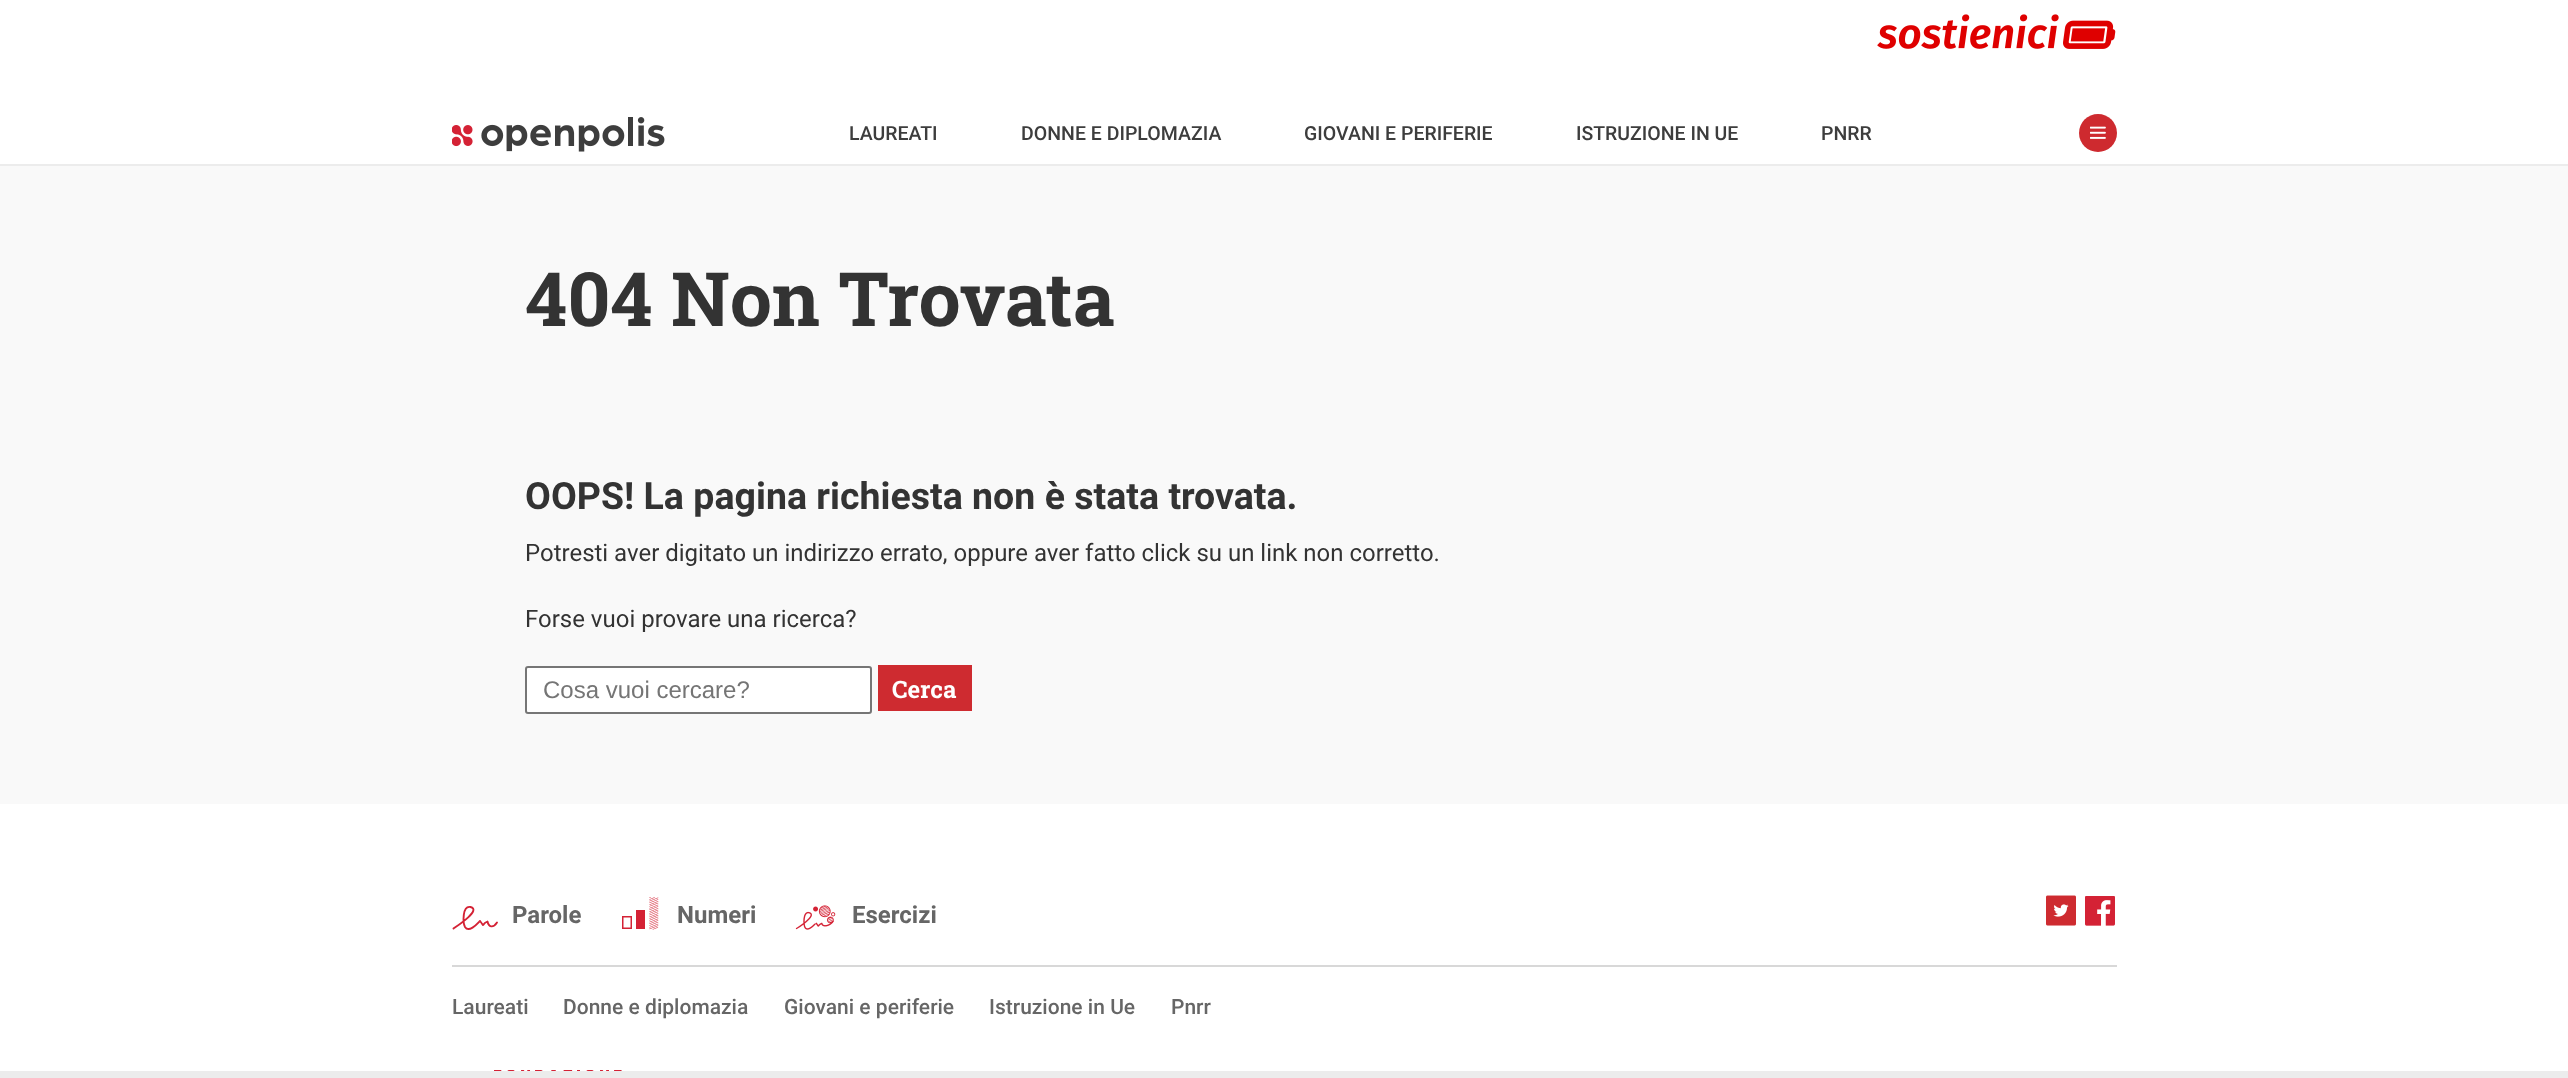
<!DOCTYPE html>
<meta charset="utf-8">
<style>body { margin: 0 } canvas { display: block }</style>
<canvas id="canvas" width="2568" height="1078"></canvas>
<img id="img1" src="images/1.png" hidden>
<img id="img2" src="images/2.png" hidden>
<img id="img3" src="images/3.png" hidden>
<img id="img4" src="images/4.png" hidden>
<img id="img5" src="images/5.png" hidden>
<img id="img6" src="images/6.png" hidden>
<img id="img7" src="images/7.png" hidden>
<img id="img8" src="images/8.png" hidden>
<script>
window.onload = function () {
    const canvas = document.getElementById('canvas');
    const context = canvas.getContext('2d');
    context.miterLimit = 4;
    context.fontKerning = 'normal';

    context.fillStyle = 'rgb(249, 249, 249)';
    context.fillRect(0, 0, 2568, 1078);
    context.fillStyle = 'rgb(255, 255, 255)';
    context.fillRect(0, 0, 2568, 164);
    context.fillStyle = 'rgb(236, 236, 236)';
    context.fillRect(0, 164, 2568, 2);
    context.drawImage(document.getElementById('img1'), 1877, 14, 239, 35);
    context.drawImage(document.getElementById('img2'), 452, 117, 213, 35);
    context.fillStyle = 'rgb(206, 42, 47)';
    context.beginPath();
    context.arc(2098, 133, 19, 0, 2 * Math.PI);
    context.fill();
    context.drawImage(document.getElementById('img3'), 2090, 126, 16, 13);
    context.fillStyle = 'rgb(255, 255, 255)';
    context.beginPath();
    context.roundRect(526, 667, 345, 46, 2);
    context.fill();
    context.strokeStyle = 'rgb(118, 118, 118)';
    context.lineWidth = 2;
    context.stroke();
    context.fillStyle = 'rgb(206, 43, 48)';
    context.fillRect(878, 665, 94, 46);
    context.fillStyle = 'rgb(255, 255, 255)';
    context.fillRect(0, 804, 2568, 267);
    context.beginPath();
    context.moveTo(453.5, 928.5);
    context.bezierCurveTo(454, 928, 482.5, 910, 470.5, 907);
    context.bezierCurveTo(462, 905, 463, 923.5, 465, 927);
    context.bezierCurveTo(469.5, 934, 480, 920.5, 480, 921);
    context.bezierCurveTo(485.5, 928, 480.5, 924.5, 487.5, 921.5);
    context.bezierCurveTo(488.5, 927, 493, 928.5, 497, 922.5);
    context.strokeStyle = 'rgb(212, 34, 53)';
    context.lineWidth = 1.9;
    context.lineCap = 'round';
    context.lineJoin = 'round';
    context.stroke();
    context.drawImage(document.getElementById('img4'), 622, 897, 37, 33);
    context.drawImage(document.getElementById('img5'), 795, 905, 41, 25);
    context.drawImage(document.getElementById('img6'), 2046, 895, 30, 31);
    context.drawImage(document.getElementById('img7'), 2085, 896, 30, 30);
    context.fillStyle = 'rgb(216, 216, 216)';
    context.fillRect(452, 965, 1665, 2);
    context.drawImage(document.getElementById('img8'), 494, 1070, 128, 1);
    context.fillStyle = 'rgb(236, 236, 236)';
    context.fillRect(0, 1071, 2568, 7);
    context.font = '500 19.5px Roboto';
    context.fillStyle = 'rgb(61, 61, 61)';
    context.fillText('LAUREATI', 849, 140);
    context.fillText('DONNE E DIPLOMAZIA', 1021, 140);
    context.fillText('GIOVANI E PERIFERIE', 1304, 140);
    context.fillText('ISTRUZIONE IN UE', 1576, 140);
    context.fillText('PNRR', 1821, 140);
    context.font = 'bold 75px Roboto Slab';
    context.fillStyle = 'rgb(51, 51, 51)';
    context.fillText('404 Non Trovata', 525, 326);
    context.font = 'bold 37.5px Roboto';
    context.fillText('OOPS! La pagina richiesta non è stata trovata.', 525, 509);
    context.font = '24px Roboto';
    context.fillText('Potresti aver digitato un indirizzo errato, oppure aver fatto click su un link non corretto.', 525, 561);
    context.fillText('Forse vuoi provare una ricerca?', 525, 627);
    context.font = '24px Liberation Sans';
    context.fillStyle = 'rgb(117, 117, 117)';
    context.fillText('Cosa vuoi cercare?', 543, 698);
    context.font = 'bold 24px Roboto Slab';
    context.fillStyle = 'rgb(255, 255, 255)';
    context.fillText('Cerca', 892, 698);
    context.font = 'bold 24px Roboto';
    context.fillStyle = 'rgb(102, 102, 102)';
    context.fillText('Parole', 512, 923);
    context.fillText('Numeri', 677, 923);
    context.fillText('Esercizi', 852, 923);
    context.font = '500 21px Roboto';
    context.fillText('Laureati', 452, 1014);
    context.fillText('Donne e diplomazia', 563, 1014);
    context.fillText('Giovani e periferie', 784, 1014);
    context.fillText('Istruzione in Ue', 989, 1014);
    context.fillText('Pnrr', 1171, 1014);
};
</script>
